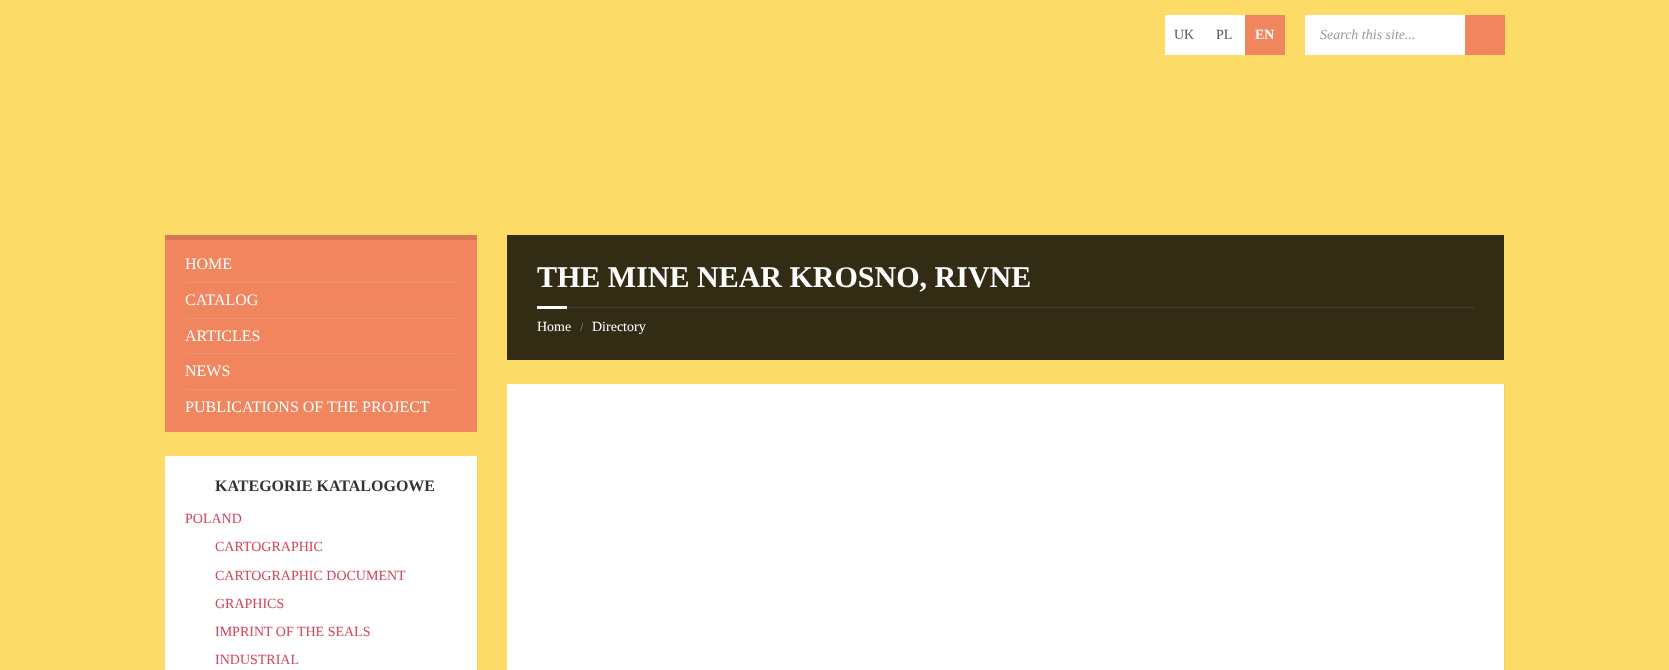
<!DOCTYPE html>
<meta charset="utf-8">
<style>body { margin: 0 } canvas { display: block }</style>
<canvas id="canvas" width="1669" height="670"></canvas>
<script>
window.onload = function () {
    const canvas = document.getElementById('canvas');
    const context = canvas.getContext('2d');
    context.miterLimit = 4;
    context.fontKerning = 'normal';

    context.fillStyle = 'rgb(252, 220, 102)';
    context.fillRect(0, 0, 1669, 670);
    context.fillStyle = 'rgb(255, 255, 255)';
    context.fillRect(1165, 15, 80, 40);
    context.fillStyle = 'rgb(240, 133, 94)';
    context.fillRect(1245, 15, 40, 40);
    context.fillStyle = 'rgb(255, 255, 255)';
    context.fillRect(1305, 15, 160, 40);
    context.fillStyle = 'rgb(240, 133, 94)';
    context.fillRect(1465, 15, 40, 40);
    context.fillRect(165, 240, 312, 192);
    context.fillStyle = 'rgb(216, 120, 85)';
    context.fillRect(165, 235, 312, 5);
    context.fillStyle = 'rgb(242, 145, 110)';
    context.fillRect(185, 282, 272, 1);
    context.fillRect(185, 318, 272, 1);
    context.fillRect(185, 353, 272, 1);
    context.fillRect(185, 389, 272, 1);
    context.fillStyle = 'rgb(239, 209, 97)';
    context.beginPath();
    context.moveTo(166, 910);
    context.lineTo(166, 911);
    context.lineTo(478, 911);
    context.lineTo(478, 457);
    context.lineTo(477, 457);
    context.lineTo(477, 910);
    context.closePath();
    context.fill();
    context.fillStyle = 'rgb(255, 255, 255)';
    context.fillRect(165, 456, 312, 214);
    context.fillStyle = 'rgb(51, 44, 21)';
    context.fillRect(507, 235, 997, 125);
    context.fillStyle = 'rgb(71, 65, 44)';
    context.fillRect(567, 307, 907, 1);
    context.fillStyle = 'rgb(255, 255, 255)';
    context.fillRect(537, 306, 30, 3);
    context.fillStyle = 'rgb(240, 209, 97)';
    context.beginPath();
    context.moveTo(508, 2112);
    context.lineTo(508, 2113);
    context.lineTo(1505, 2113);
    context.lineTo(1505, 385);
    context.lineTo(1504, 385);
    context.lineTo(1504, 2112);
    context.closePath();
    context.fill();
    context.fillStyle = 'rgb(255, 255, 255)';
    context.fillRect(507, 384, 997, 286);
    context.font = '14px Liberation Serif';
    context.fillStyle = 'rgb(86, 86, 86)';
    context.fillText('UK', 1174, 39);
    context.fillText('PL', 1216, 39);
    context.font = 'bold 14px Liberation Serif';
    context.fillStyle = 'rgb(255, 255, 255)';
    context.fillText('EN', 1255, 39);
    context.font = 'italic 14px Liberation Serif';
    context.fillStyle = 'rgb(154, 154, 154)';
    context.fillText('Search this site...', 1320, 39);
    context.font = '16px Liberation Serif';
    context.fillStyle = 'rgb(255, 255, 255)';
    context.fillText('HOME', 185, 269);
    context.fillText('CATALOG', 185, 305);
    context.fillText('ARTICLES', 185, 341);
    context.fillText('NEWS', 185, 376);
    context.fillText('PUBLICATIONS OF THE PROJECT', 185, 412);
    context.font = 'bold 16px Liberation Serif';
    context.fillStyle = 'rgb(51, 51, 51)';
    context.fillText('KATEGORIE KATALOGOWE', 215, 491);
    context.font = '14px Liberation Serif';
    context.fillStyle = 'rgb(208, 69, 93)';
    context.fillText('POLAND', 185, 523);
    context.fillText('CARTOGRAPHIC', 215, 551);
    context.fillText('CARTOGRAPHIC DOCUMENT', 215, 580);
    context.fillText('GRAPHICS', 215, 608);
    context.fillText('IMPRINT OF THE SEALS', 215, 636);
    context.fillText('INDUSTRIAL', 215, 664);
    context.font = 'bold 30px Liberation Serif';
    context.fillStyle = 'rgb(255, 255, 255)';
    context.fillText('THE MINE NEAR KROSNO, RIVNE', 537, 287);
    context.font = '14px Liberation Serif';
    context.fillText('Home', 537, 331);
    context.font = '12px Liberation Serif';
    context.fillStyle = 'rgb(138, 148, 155)';
    context.fillText('/', 580, 331);
    context.font = '14px Liberation Serif';
    context.fillStyle = 'rgb(255, 255, 255)';
    context.fillText('Directory', 592, 331);
};
</script>
